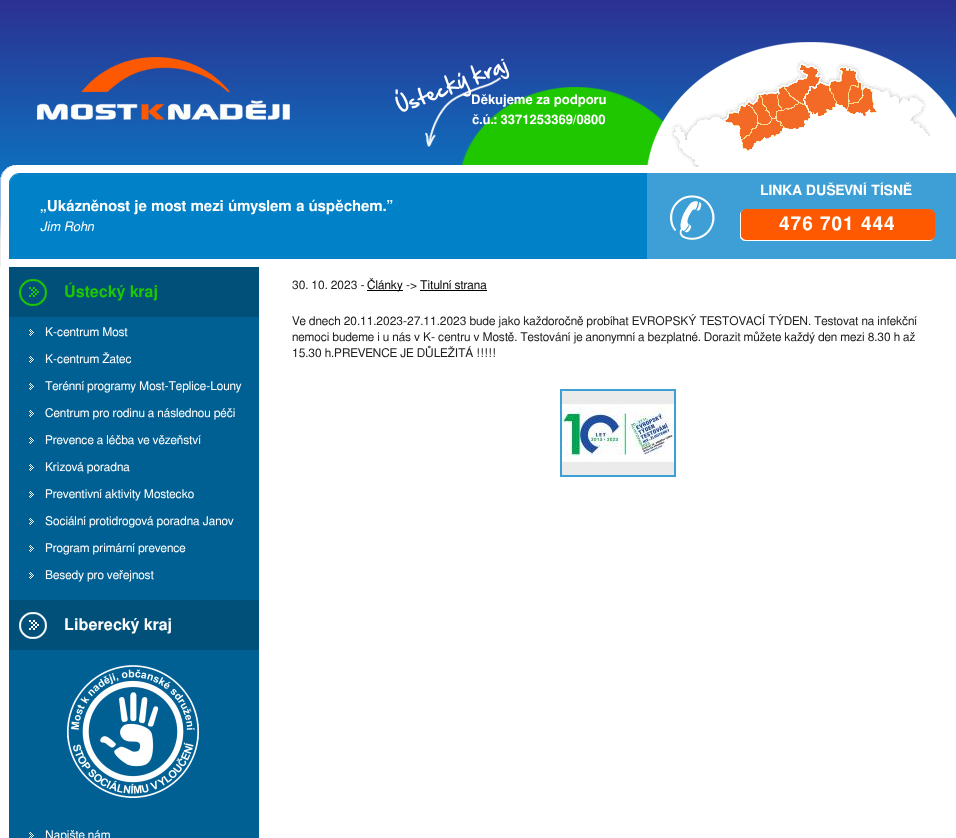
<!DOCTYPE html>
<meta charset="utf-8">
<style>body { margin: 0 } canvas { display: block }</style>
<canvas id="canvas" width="956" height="838"></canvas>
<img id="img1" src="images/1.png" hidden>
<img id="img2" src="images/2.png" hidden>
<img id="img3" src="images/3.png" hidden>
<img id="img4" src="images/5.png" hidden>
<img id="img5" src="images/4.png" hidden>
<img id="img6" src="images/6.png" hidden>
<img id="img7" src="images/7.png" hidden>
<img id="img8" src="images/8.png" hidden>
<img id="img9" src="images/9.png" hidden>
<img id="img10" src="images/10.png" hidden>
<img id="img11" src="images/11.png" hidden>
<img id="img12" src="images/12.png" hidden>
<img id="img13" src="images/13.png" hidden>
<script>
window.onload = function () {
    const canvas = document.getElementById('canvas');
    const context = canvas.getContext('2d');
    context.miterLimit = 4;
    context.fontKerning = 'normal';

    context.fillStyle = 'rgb(255, 255, 255)';
    context.fillRect(0, 0, 956, 838);
    context.drawImage(document.getElementById('img1'), 0, 0, 956, 42);
    context.drawImage(document.getElementById('img2'), 0, 42, 956, 225);
    context.drawImage(document.getElementById('img3'), 33, 55, 261, 72);
    context.drawImage(document.getElementById('img4'), 692, 65, 192, 85);
    context.drawImage(document.getElementById('img5'), 671, 60, 259, 107);
    context.drawImage(document.getElementById('img6'), 669, 190, 48, 56);
    context.drawImage(document.getElementById('img7'), 740, 209, 195, 32);
    context.fillStyle = 'rgb(0, 96, 147)';
    context.fillRect(9, 317, 250, 521);
    context.fillStyle = 'rgb(0, 80, 122)';
    context.fillRect(9, 267, 250, 50);
    context.drawImage(document.getElementById('img8'), 17, 273, 32, 38);
    context.drawImage(document.getElementById('img9'), 29, 329, 5, 7);
    context.drawImage(document.getElementById('img9'), 29, 356, 5, 7);
    context.drawImage(document.getElementById('img9'), 29, 383, 5, 7);
    context.drawImage(document.getElementById('img9'), 29, 410, 5, 7);
    context.drawImage(document.getElementById('img9'), 29, 437, 5, 7);
    context.drawImage(document.getElementById('img9'), 29, 464, 5, 7);
    context.drawImage(document.getElementById('img9'), 29, 491, 5, 7);
    context.drawImage(document.getElementById('img9'), 29, 518, 5, 7);
    context.drawImage(document.getElementById('img9'), 29, 545, 5, 7);
    context.drawImage(document.getElementById('img9'), 29, 572, 5, 7);
    context.fillRect(9, 600, 250, 50);
    context.drawImage(document.getElementById('img10'), 17, 608, 32, 32);
    context.drawImage(document.getElementById('img11'), 65, 660, 136, 143);
    context.drawImage(document.getElementById('img12'), 29, 832, 5, 6);
    context.fillStyle = 'rgb(0, 0, 0)';
    context.fillRect(367, 290, 36, 1);
    context.fillRect(420, 290, 67, 1);
    context.strokeStyle = 'rgb(62, 159, 213)';
    context.lineWidth = 2;
    context.strokeRect(561, 390, 114, 86);
    context.drawImage(document.getElementById('img13'), 562, 391, 112, 84);
    context.font = '600 13px FreeSans';
    context.fillStyle = 'rgb(255, 255, 255)';
    context.fillText('Děkujeme za podporu', 471, 104);
    context.fillText('č.ú.: 3371253369/0800', 472, 124);
    context.font = '600 15px FreeSans';
    context.fillText('„Ukázněnost je most mezi úmyslem a úspěchem.”', 40, 211);
    context.font = '600 14px FreeSans';
    context.fillText('LINKA DUŠEVNÍ TÍSNĚ', 760, 195);
    context.letterSpacing = '1px';
    context.font = '600 19px FreeSans';
    context.fillText('476 701 444', 779, 230);
    context.letterSpacing = '0px';
    context.font = 'italic 13px FreeSans';
    context.fillText('Jim Rohn', 40, 231);
    context.font = '600 16px FreeSans';
    context.fillStyle = 'rgb(30, 200, 0)';
    context.fillText('Ústecký kraj', 64, 297);
    context.font = '12px FreeSans';
    context.fillStyle = 'rgb(255, 255, 255)';
    context.fillText('K-centrum Most', 45, 336);
    context.fillText('K-centrum Žatec', 45, 363);
    context.fillText('Terénní programy Most-Teplice-Louny', 45, 390);
    context.fillText('Centrum pro rodinu a následnou péči', 45, 417);
    context.fillText('Prevence a léčba ve vězeňství', 45, 444);
    context.fillText('Krizová poradna', 45, 471);
    context.fillText('Preventivní aktivity Mostecko', 45, 498);
    context.fillText('Sociální protidrogová poradna Janov', 45, 525);
    context.fillText('Program primární prevence', 45, 552);
    context.fillText('Besedy pro veřejnost', 45, 579);
    context.font = '600 16px FreeSans';
    context.fillText('Liberecký kraj', 64, 630);
    context.font = '12px FreeSans';
    context.fillText('Napište nám', 45, 839);
    context.fillStyle = 'rgb(32, 32, 32)';
    context.fillText('30. 10. 2023 -', 292, 289);
    context.fillStyle = 'rgb(0, 0, 0)';
    context.fillText('Články', 367, 289);
    context.fillStyle = 'rgb(32, 32, 32)';
    context.fillText('->', 406, 289);
    context.fillStyle = 'rgb(0, 0, 0)';
    context.fillText('Titulní strana', 420, 289);
    context.fillStyle = 'rgb(32, 32, 32)';
    context.fillText('Ve dnech 20.11.2023-27.11.2023 bude jako každoročně probíhat EVROPSKÝ TESTOVACÍ TÝDEN. Testovat na infekční', 292, 325);
    context.fillText('nemoci budeme i u nás v K- centru v Mostě. Testování je anonymní a bezplatné. Dorazit můžete každý den mezi 8.30 h až', 292, 341);
    context.fillText('15.30 h.PREVENCE JE DŮLEŽITÁ !!!!!', 292, 357);
};
</script>
